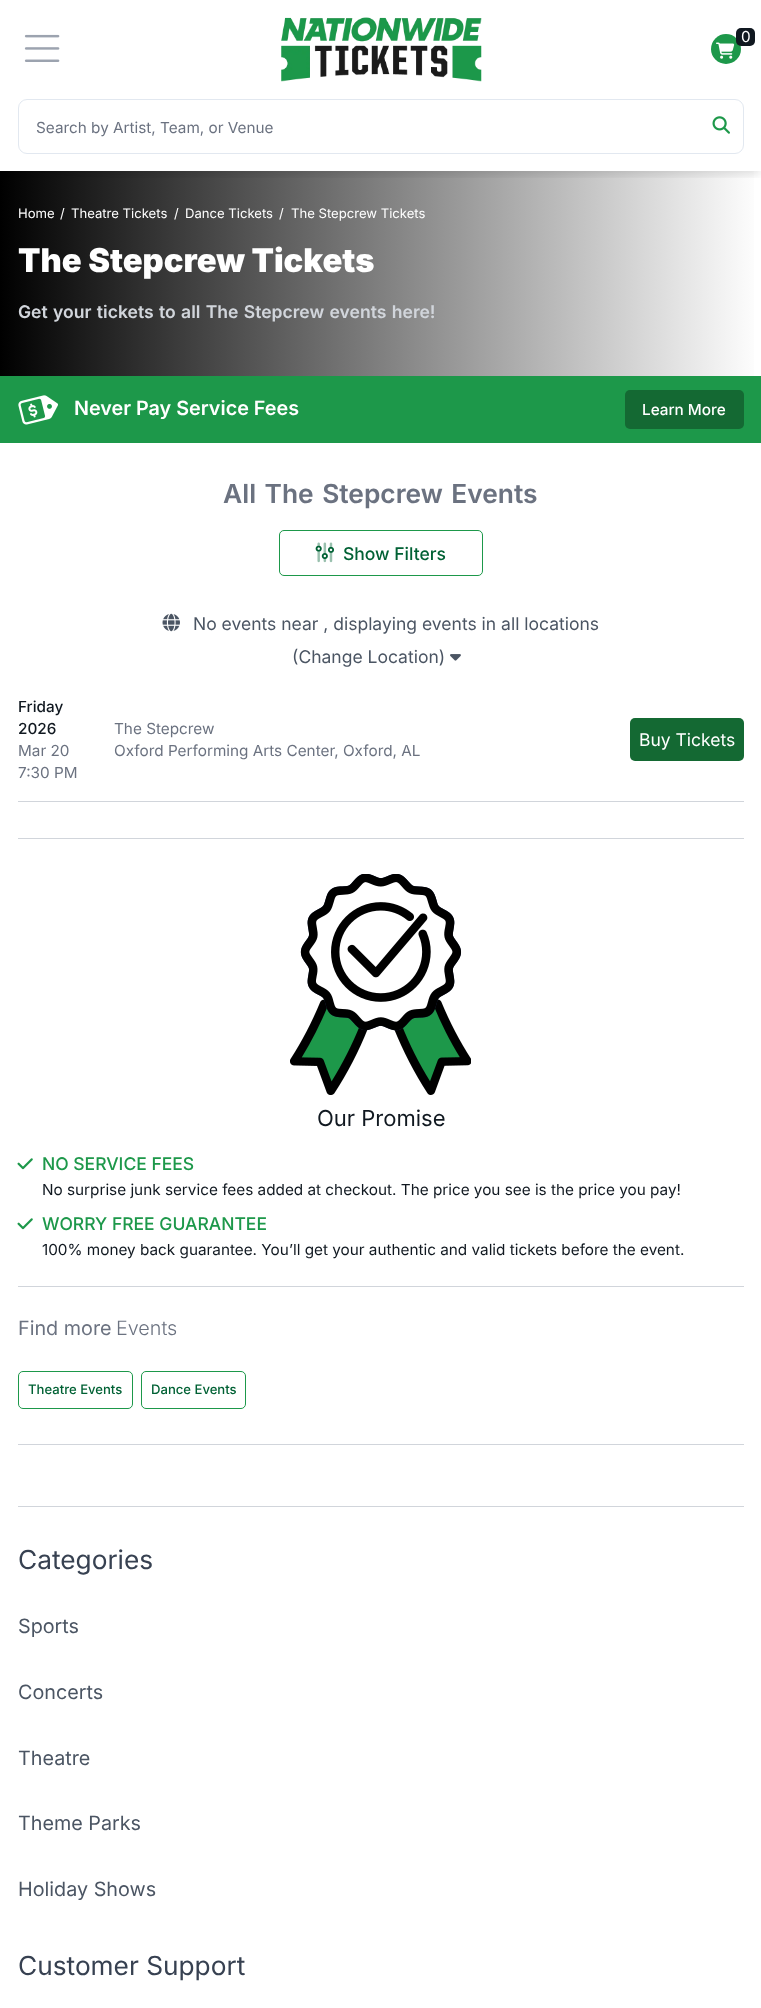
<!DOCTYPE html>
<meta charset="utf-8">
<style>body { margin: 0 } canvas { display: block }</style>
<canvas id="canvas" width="761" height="2008"></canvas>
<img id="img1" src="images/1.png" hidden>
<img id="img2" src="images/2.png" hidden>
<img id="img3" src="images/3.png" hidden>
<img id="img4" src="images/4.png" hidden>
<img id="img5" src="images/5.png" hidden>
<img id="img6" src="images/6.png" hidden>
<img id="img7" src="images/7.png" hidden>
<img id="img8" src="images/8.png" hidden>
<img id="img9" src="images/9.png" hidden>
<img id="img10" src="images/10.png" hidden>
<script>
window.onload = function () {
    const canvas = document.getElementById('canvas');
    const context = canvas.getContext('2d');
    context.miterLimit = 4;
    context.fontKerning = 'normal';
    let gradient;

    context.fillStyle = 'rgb(255, 255, 255)';
    context.fillRect(0, 0, 761, 2008);
    gradient = context.createLinearGradient(0, 274, 761, 274);
    gradient.addColorStop(0, 'rgb(0, 0, 0)');
    gradient.addColorStop(1, 'rgb(255, 255, 255)');
    context.fillStyle = gradient;
    context.fillRect(0, 171, 754, 205);
    context.save();
    context.beginPath();
    context.rect(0, 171, 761, 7);
    context.clip();
    context.fillStyle = 'rgba(0, 0, 0, 0.1)';
    context.filter = 'blur(4px)';
    context.beginPath();
    context.rect(1, 6, 759, 169);
    context.fill();
    context.filter = 'none';
    context.restore();
    context.drawImage(document.getElementById('img1'), 24, 34, 36, 28);
    context.drawImage(document.getElementById('img2'), 281, 17, 201, 65);
    context.fillStyle = 'rgb(29, 152, 74)';
    context.beginPath();
    context.arc(726, 49, 15, 0, 2 * Math.PI);
    context.fill();
    context.drawImage(document.getElementById('img3'), 716, 42, 19, 17);
    context.fillStyle = 'rgb(16, 24, 32)';
    context.beginPath();
    context.roundRect(736, 28, 19, 18, 5);
    context.fill();
    context.beginPath();
    context.roundRect(18.5, 99.5, 725, 54, 8.5);
    context.strokeStyle = 'rgb(226, 232, 240)';
    context.stroke();
    context.drawImage(document.getElementById('img4'), 712, 116, 18, 18);
    context.fillStyle = 'rgb(29, 152, 74)';
    context.fillRect(0, 376, 761, 67);
    context.drawImage(document.getElementById('img5'), 18, 395, 40, 30);
    context.fillStyle = 'rgb(20, 105, 51)';
    context.beginPath();
    context.roundRect(625, 390, 119, 39, 5);
    context.fill();
    context.beginPath();
    context.roundRect(279.5, 530.5, 203, 45, 4.5);
    context.strokeStyle = 'rgb(29, 152, 74)';
    context.stroke();
    context.drawImage(document.getElementById('img6'), 315, 542, 19, 21);
    context.drawImage(document.getElementById('img7'), 162, 613, 18, 19);
    context.drawImage(document.getElementById('img8'), 450, 654, 11, 7);
    context.fillStyle = 'rgb(209, 213, 219)';
    context.fillRect(18, 801, 726, 1);
    context.fillStyle = 'rgb(20, 105, 51)';
    context.beginPath();
    context.roundRect(630, 718, 114, 43, 5);
    context.fill();
    context.fillStyle = 'rgb(209, 213, 219)';
    context.fillRect(18, 838, 726, 1);
    context.drawImage(document.getElementById('img9'), 290, 874, 181, 221);
    context.drawImage(document.getElementById('img10'), 17, 1158, 16, 12);
    context.drawImage(document.getElementById('img10'), 17, 1218, 16, 12);
    context.fillRect(18, 1286, 726, 1);
    context.beginPath();
    context.roundRect(18.5, 1371.5, 114, 37, 4.5);
    context.stroke();
    context.beginPath();
    context.roundRect(141.5, 1371.5, 104, 37, 4.5);
    context.stroke();
    context.fillRect(18, 1444, 726, 1);
    context.fillRect(18, 1506, 726, 1);
    context.font = '15.3px Inter';
    context.fillStyle = 'rgb(255, 255, 255)';
    context.fillText('0', 741, 42);
    context.fillStyle = 'rgb(107, 114, 128)';
    context.fillText('Search by Artist, Team, or Venue', 36, 133);
    context.font = '13.1px Inter';
    context.fillStyle = 'rgb(255, 255, 255)';
    context.fillText('Home', 18, 218);
    context.fillText('/', 60, 218);
    context.fillText('Theatre Tickets', 71, 218);
    context.fillText('/', 174, 218);
    context.fillText('Dance Tickets', 185, 218);
    context.fillText('/', 279, 218);
    context.fillText('The Stepcrew Tickets', 291, 218);
    context.font = '900 32.75px Inter';
    context.fillText('The Stepcrew Tickets', 18, 272);
    context.wordSpacing = '1px';
    context.font = '600 17.5px Inter';
    context.fillStyle = 'rgb(209, 213, 219)';
    context.fillText('Get your tickets to all The Stepcrew events here!', 18, 318);
    context.wordSpacing = '0px';
    context.font = '600 19.75px "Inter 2"';
    context.fillStyle = 'rgb(255, 255, 255)';
    context.fillText('Never Pay Service Fees', 74, 415);
    context.font = '500 15.3px Inter';
    context.fillText('Learn More', 642, 415);
    context.wordSpacing = '2px';
    context.font = '600 26.25px Inter';
    context.fillStyle = 'rgb(107, 114, 128)';
    context.fillText('All The Stepcrew Events', 223, 503);
    context.wordSpacing = '0px';
    context.font = '500 17.5px Inter';
    context.fillStyle = 'rgb(0, 97, 52)';
    context.fillText('Show Filters', 343, 560);
    context.font = '17.5px Inter';
    context.fillStyle = 'rgb(75, 85, 99)';
    context.fillText('No events near , displaying events in all locations', 193, 630);
    context.fillText('(Change Location)', 292, 663);
    context.font = '500 15.3px Inter';
    context.fillStyle = 'rgb(16, 24, 32)';
    context.fillText('Friday', 18, 712);
    context.fillText('2026', 18, 734);
    context.font = '15.3px Inter';
    context.fillStyle = 'rgb(107, 114, 128)';
    context.fillText('Mar 20', 18, 756);
    context.fillText('7:30 PM', 18, 778);
    context.fillText('The Stepcrew', 114, 734);
    context.fillText('Oxford Performing Arts Center, Oxford, AL', 114, 756);
    context.font = '17.5px Inter';
    context.fillStyle = 'rgb(255, 255, 255)';
    context.fillText('Buy Tickets', 639, 746);
    context.font = '22px Inter';
    context.fillStyle = 'rgb(16, 24, 32)';
    context.fillText('Our Promise', 317, 1126);
    context.font = '500 17.5px Inter';
    context.fillStyle = 'rgb(29, 152, 74)';
    context.fillText('NO SERVICE FEES', 42, 1170);
    context.font = '15.3px Inter';
    context.fillStyle = 'rgb(16, 24, 32)';
    context.fillText('No surprise junk service fees added at checkout. The price you see is the price you pay!', 42, 1195);
    context.font = '500 17.5px Inter';
    context.fillStyle = 'rgb(29, 152, 74)';
    context.fillText('WORRY FREE GUARANTEE', 42, 1230);
    context.font = '15.3px Inter';
    context.fillStyle = 'rgb(16, 24, 32)';
    context.fillText('100% money back guarantee. You’ll get your authentic and valid tickets before the event.', 42, 1255);
    context.font = '19.75px Inter';
    context.fillStyle = 'rgb(107, 114, 128)';
    context.fillText('Find more', 18, 1335);
    context.font = '300 19.75px Inter';
    context.fillText('Events', 116, 1335);
    context.font = '500 13.1px Inter';
    context.fillStyle = 'rgb(0, 97, 52)';
    context.fillText('Theatre Events', 28, 1394);
    context.fillText('Dance Events', 151, 1394);
    context.font = '26.25px Inter';
    context.fillStyle = 'rgb(55, 65, 81)';
    context.fillText('Categories', 18, 1569);
    context.font = '19.75px Inter';
    context.fillStyle = 'rgb(75, 85, 99)';
    context.fillText('Sports', 18, 1633);
    context.fillText('Concerts', 18, 1699);
    context.fillText('Theatre', 18, 1765);
    context.fillText('Theme Parks', 18, 1830);
    context.fillText('Holiday Shows', 18, 1896);
    context.font = '26.25px Inter';
    context.fillStyle = 'rgb(55, 65, 81)';
    context.fillText('Customer Support', 18, 1975);
};
</script>
